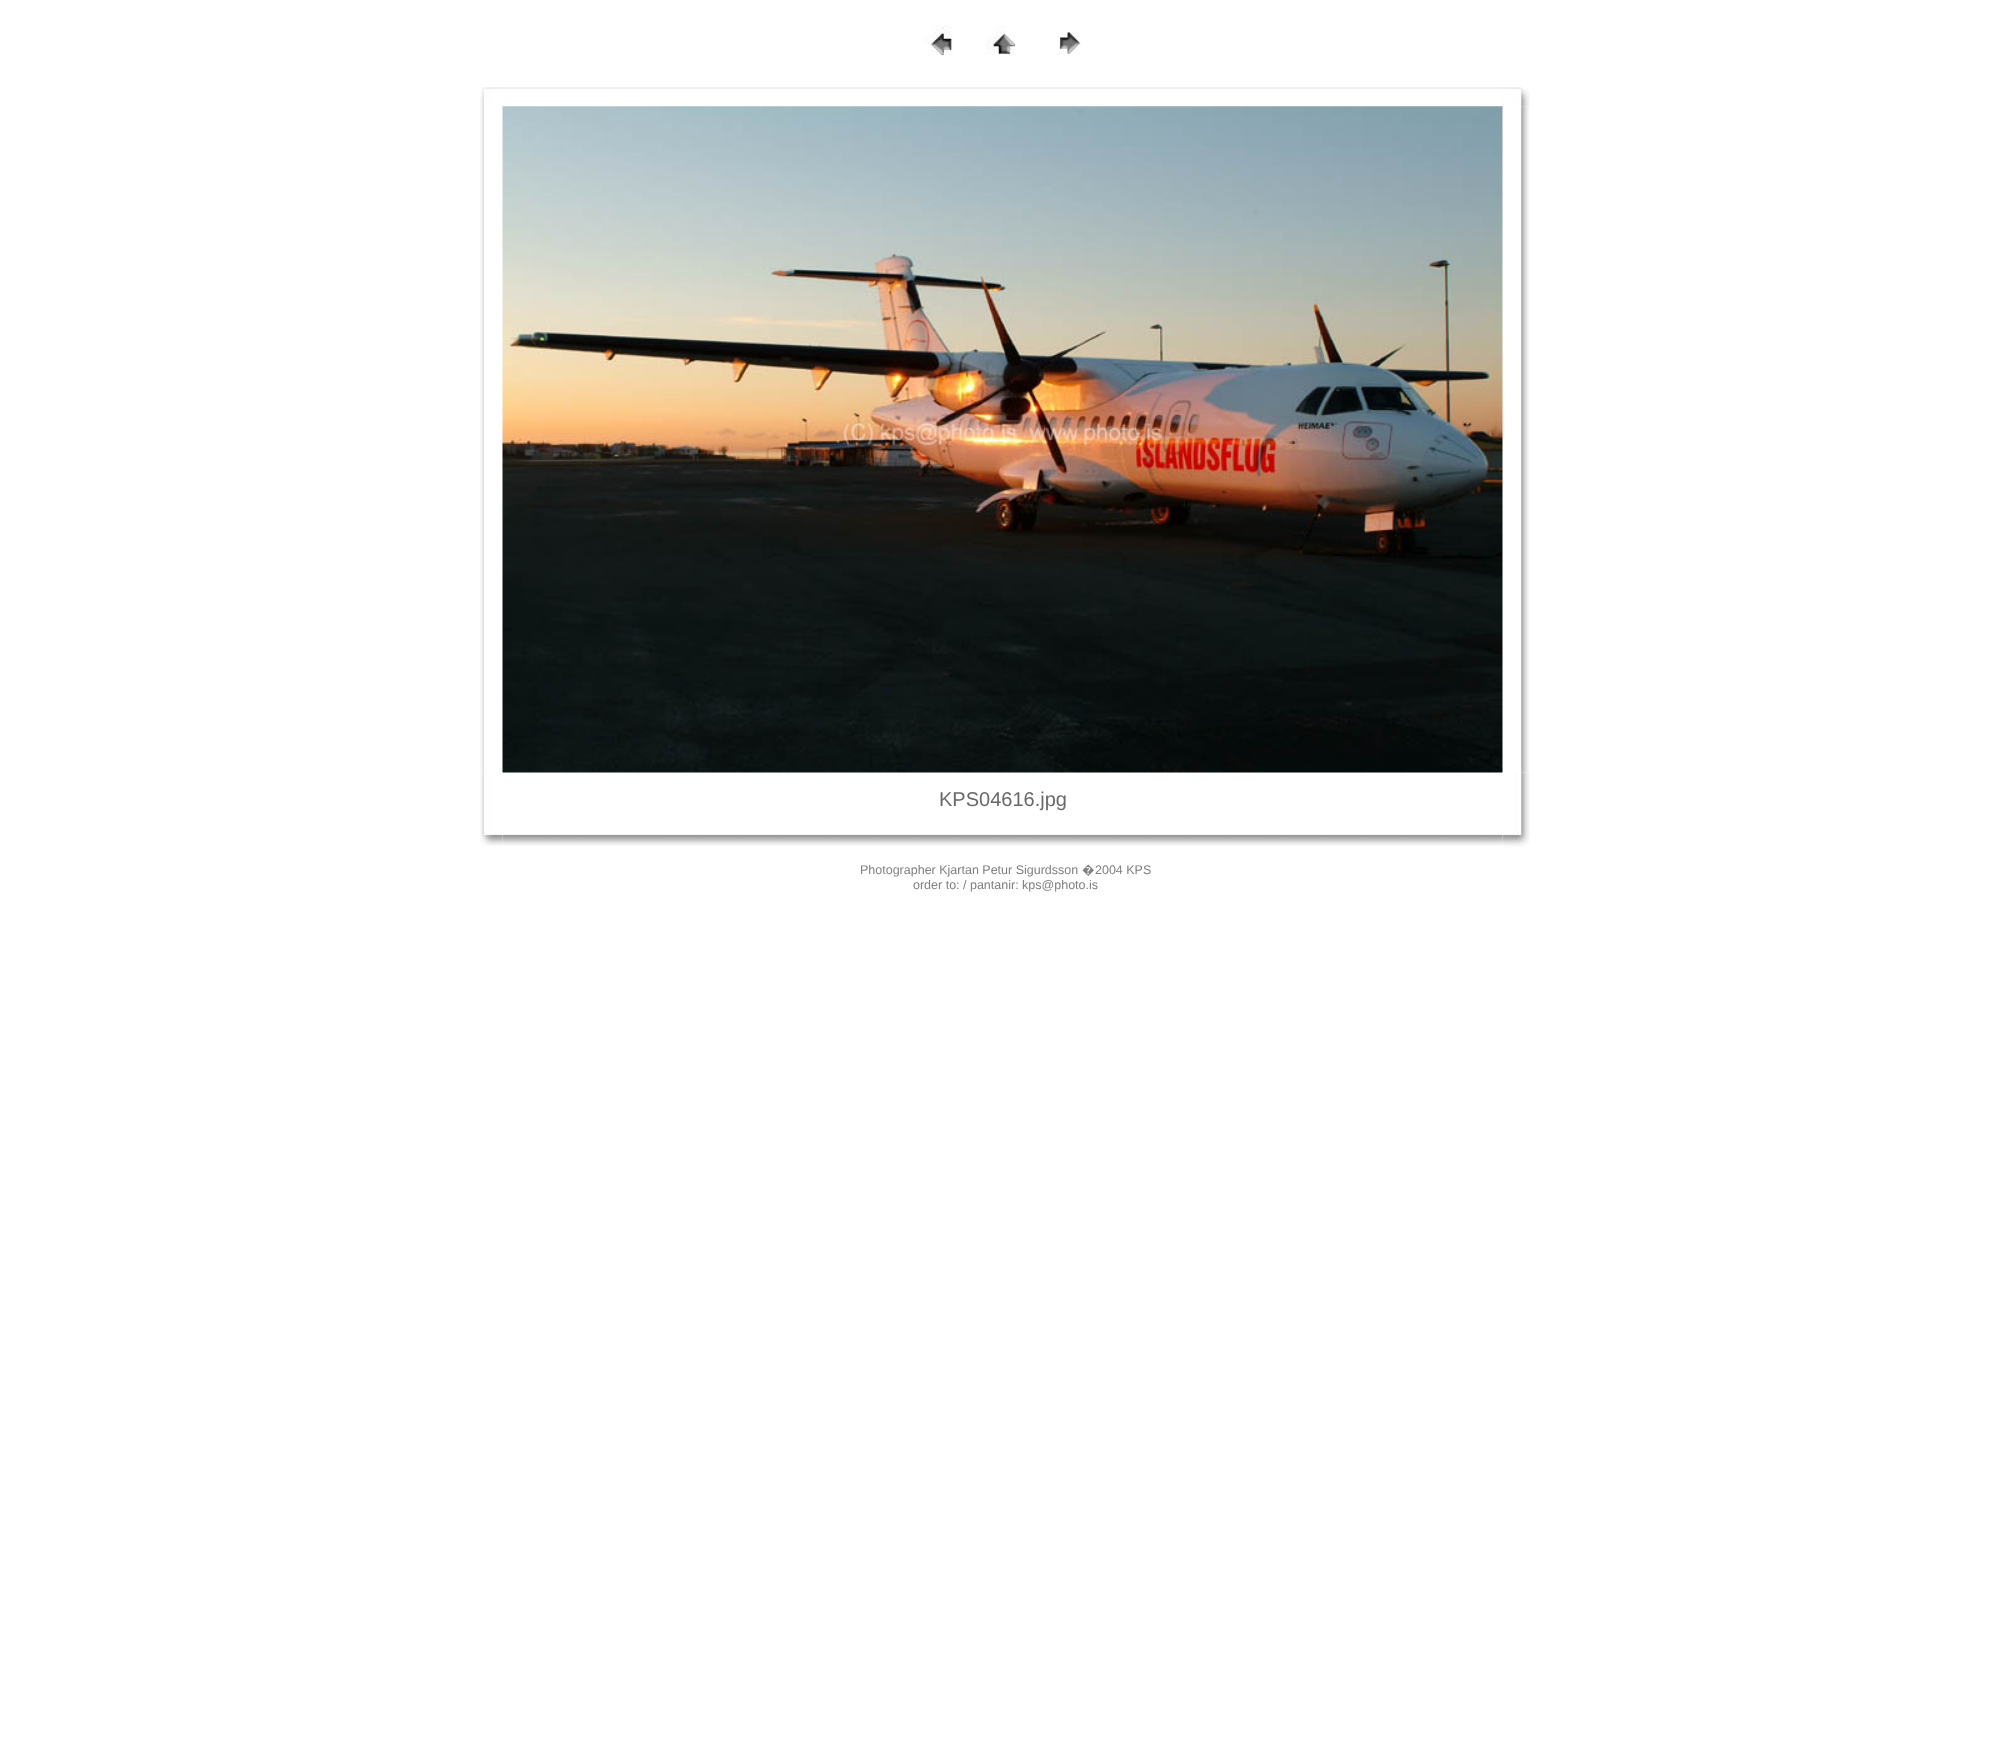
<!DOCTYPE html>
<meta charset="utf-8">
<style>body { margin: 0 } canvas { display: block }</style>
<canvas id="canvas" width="2011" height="1747"></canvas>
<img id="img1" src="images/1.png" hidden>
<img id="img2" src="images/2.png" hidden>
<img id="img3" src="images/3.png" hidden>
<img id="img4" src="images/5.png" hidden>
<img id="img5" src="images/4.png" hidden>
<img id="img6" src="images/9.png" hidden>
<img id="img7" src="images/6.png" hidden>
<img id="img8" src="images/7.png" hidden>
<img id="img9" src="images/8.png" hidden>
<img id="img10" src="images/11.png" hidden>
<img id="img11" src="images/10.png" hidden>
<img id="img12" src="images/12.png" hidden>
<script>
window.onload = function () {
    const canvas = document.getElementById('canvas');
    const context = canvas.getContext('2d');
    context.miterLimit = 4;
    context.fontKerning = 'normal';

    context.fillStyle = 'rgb(255, 255, 255)';
    context.fillRect(0, 0, 2011, 1747);
    context.drawImage(document.getElementById('img1'), 924, 25, 29, 31);
    context.drawImage(document.getElementById('img2'), 985, 25, 31, 30);
    context.drawImage(document.getElementById('img3'), 1059, 32, 22, 22);
    context.drawImage(document.getElementById('img4'), 502, 87, 1001, 2);
    context.drawImage(document.getElementById('img5'), 480, 87, 23, 19);
    context.drawImage(document.getElementById('img6'), 1521, 106, 8, 667);
    context.drawImage(document.getElementById('img7'), 1502, 87, 28, 20);
    context.drawImage(document.getElementById('img8'), 480, 106, 4, 667);
    context.drawImage(document.getElementById('img9'), 502, 106, 1001, 667);
    context.drawImage(document.getElementById('img10'), 502, 834, 1001, 12);
    context.drawImage(document.getElementById('img11'), 480, 772, 23, 74);
    context.drawImage(document.getElementById('img12'), 1502, 772, 28, 75);
    context.font = '20px Liberation Sans';
    context.fillStyle = 'rgb(105, 105, 105)';
    context.fillText('KPS04616.jpg', 939, 806);
    context.font = '12.5px Liberation Sans';
    context.fillStyle = 'rgb(128, 128, 128)';
    context.fillText('Photographer Kjartan Petur Sigurdsson', 860, 874);
    context.font = '12.5px Noto Sans';
    context.fillText('�', 1082, 874);
    context.font = '12.5px Liberation Sans';
    context.fillText('2004 KPS', 1095, 874);
    context.fillText('order to: / pantanir: kps@photo.is', 913, 889);
};
</script>
